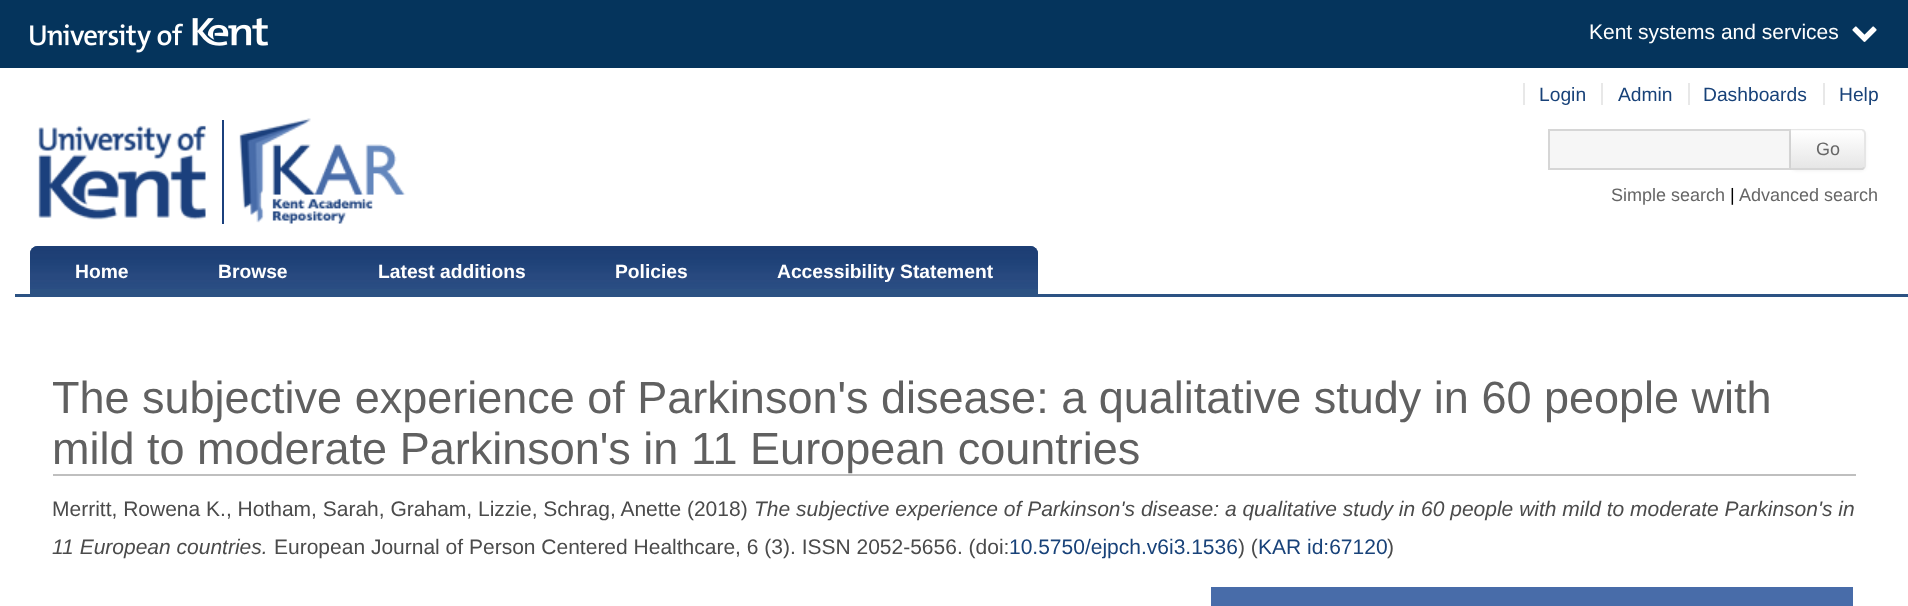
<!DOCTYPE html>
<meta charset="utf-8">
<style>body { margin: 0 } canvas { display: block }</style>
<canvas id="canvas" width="1908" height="606"></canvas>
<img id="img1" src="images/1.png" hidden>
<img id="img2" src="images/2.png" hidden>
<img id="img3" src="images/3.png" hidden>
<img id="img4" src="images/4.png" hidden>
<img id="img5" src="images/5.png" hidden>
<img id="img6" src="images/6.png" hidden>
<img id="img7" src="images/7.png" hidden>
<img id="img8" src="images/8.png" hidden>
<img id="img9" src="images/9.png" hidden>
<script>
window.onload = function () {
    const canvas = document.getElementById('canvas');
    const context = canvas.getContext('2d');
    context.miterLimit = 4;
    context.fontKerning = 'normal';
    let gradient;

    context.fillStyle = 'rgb(255, 255, 255)';
    context.fillRect(0, 0, 1908, 606);
    context.fillStyle = 'rgb(5, 52, 92)';
    context.fillRect(0, 0, 1908, 68);
    context.drawImage(document.getElementById('img1'), 30, 18, 238, 35);
    context.drawImage(document.getElementById('img2'), 1852, 26, 25, 16);
    context.drawImage(document.getElementById('img3'), 38, 125, 168, 95);
    context.fillStyle = 'rgb(27, 64, 125)';
    context.fillRect(222, 120, 2, 104);
    context.drawImage(document.getElementById('img4'), 239, 118, 167, 106);
    context.fillStyle = 'rgb(232, 232, 232)';
    context.fillRect(1523, 83, 2, 22);
    context.fillRect(1601, 83, 2, 22);
    context.fillRect(1688, 83, 2, 22);
    context.fillRect(1823, 83, 2, 22);
    context.fillStyle = 'rgb(246, 246, 246)';
    context.beginPath();
    context.rect(1549, 130, 241, 39);
    context.fill();
    context.strokeStyle = 'rgb(214, 214, 214)';
    context.lineWidth = 2;
    context.stroke();
    context.fillStyle = 'rgba(0, 0, 0, 0.05)';
    context.filter = 'blur(1.5px)';
    context.beginPath();
    context.roundRect(1791, 131, 75, 40, 5);
    context.fill();
    context.filter = 'none';
    context.fillStyle = 'rgb(249, 249, 249)';
    context.beginPath();
    context.roundRect(1791, 129, 75, 41, [0, 5, 5, 0]);
    context.fill();
    context.save();
    context.beginPath();
    context.roundRect(1791, 129, 75, 41, [0, 5, 5, 0]);
    context.clip();
    gradient = context.createLinearGradient(1828, 131, 1828, 168);
    gradient.addColorStop(0, 'rgb(255, 255, 255)');
    gradient.addColorStop(1, 'rgb(230, 230, 230)');
    context.fillStyle = gradient;
    context.fillRect(1791, 131, 75, 37);
    context.restore();
    context.fillStyle = 'rgba(255, 255, 255, 0.2)';
    context.beginPath();
    context.moveTo(1791, 132);
    context.lineTo(1850, 132);
    context.bezierCurveTo(1867, 132, 1864, 129, 1864, 145);
    context.lineTo(1864, 167);
    context.bezierCurveTo(1865, 167, 1865, 166, 1865, 165);
    context.lineTo(1865, 134);
    context.bezierCurveTo(1865, 132, 1864, 131, 1862, 131);
    context.lineTo(1791, 131);
    context.closePath();
    context.fill();
    context.fillStyle = 'rgb(230, 230, 230)';
    context.beginPath();
    context.moveTo(1791, 129);
    context.lineTo(1791, 130);
    context.lineTo(1862, 130);
    context.lineTo(1863, 132);
    context.lineTo(1865, 130);
    context.lineTo(1862, 129);
    context.closePath();
    context.fill();
    context.beginPath();
    context.moveTo(1863.5, 167);
    context.lineTo(1864, 165);
    context.lineTo(1864, 134);
    context.lineTo(1863.5, 131.5);
    context.lineTo(1864.5, 130.5);
    context.bezierCurveTo(1865.5, 131, 1866, 132.5, 1866, 134);
    context.lineTo(1866, 165);
    context.bezierCurveTo(1866, 166, 1865.5, 167, 1865, 168);
    context.closePath();
    context.fill();
    context.fillStyle = 'rgb(214, 214, 214)';
    context.beginPath();
    context.moveTo(1864, 167);
    context.lineTo(1865, 168);
    context.lineTo(1863, 170);
    context.lineTo(1791, 170);
    context.lineTo(1791, 168);
    context.lineTo(1862, 168);
    context.closePath();
    context.fill();
    context.fillStyle = 'rgb(44, 82, 131)';
    context.fillRect(15, 294, 1893, 3);
    context.beginPath();
    context.roundRect(30, 246, 144, 48, [8, 0, 0, 0]);
    context.fill();
    context.drawImage(document.getElementById('img5'), 30, 246, 144, 43);
    context.fillRect(174, 289, 558, 5);
    context.drawImage(document.getElementById('img6'), 174, 246, 159, 43);
    context.drawImage(document.getElementById('img7'), 333, 246, 237, 43);
    context.drawImage(document.getElementById('img8'), 570, 246, 162, 43);
    context.beginPath();
    context.roundRect(732, 246, 306, 48, [0, 8, 0, 0]);
    context.fill();
    context.drawImage(document.getElementById('img9'), 732, 246, 306, 43);
    context.fillStyle = 'rgb(191, 191, 191)';
    context.fillRect(53, 474, 1803, 2);
    context.fillStyle = 'rgb(72, 108, 169)';
    context.fillRect(1211, 587, 642, 19);
    context.font = '21px Liberation Sans';
    context.fillStyle = 'rgb(255, 255, 255)';
    context.fillText('Kent systems and services', 1589, 39);
    context.font = '19.25px Liberation Sans';
    context.fillStyle = 'rgb(24, 66, 121)';
    context.fillText('Login', 1539, 101);
    context.fillText('Admin', 1618, 101);
    context.fillText('Dashboards', 1703, 101);
    context.fillText('Help', 1839, 101);
    context.font = '18px Liberation Sans';
    context.fillStyle = 'rgb(102, 102, 102)';
    context.fillText('Go', 1816, 155);
    context.fillText('Simple search', 1611, 201);
    context.fillStyle = 'rgb(0, 0, 0)';
    context.fillText('|', 1730, 201);
    context.fillStyle = 'rgb(102, 102, 102)';
    context.fillText('Advanced search', 1739, 201);
    context.font = 'bold 19.25px Liberation Sans';
    context.fillStyle = 'rgb(255, 255, 255)';
    context.fillText('Home', 75, 278);
    context.fillText('Browse', 218, 278);
    context.fillText('Latest additions', 378, 278);
    context.fillText('Policies', 615, 278);
    context.fillText('Accessibility Statement', 777, 278);
    context.font = '45px Liberation Sans';
    context.fillStyle = 'rgb(96, 96, 96)';
    context.fillText('The subjective experience of Parkinson\'s disease: a qualitative study in 60 people with', 52, 413);
    context.fillText('mild to moderate Parkinson\'s in 11 European countries', 52, 464);
    context.font = '21px Liberation Sans';
    context.fillStyle = 'rgb(75, 75, 75)';
    context.fillText('Merritt, Rowena K., Hotham, Sarah, Graham, Lizzie, Schrag, Anette (2018)', 52, 516);
    context.font = 'italic 21px Liberation Sans';
    context.fillText('The subjective experience of Parkinson\'s disease: a qualitative study in 60 people with mild to moderate Parkinson\'s in', 754, 516);
    context.fillText('11 European countries.', 52, 554);
    context.font = '21px Liberation Sans';
    context.fillText('European Journal of Person Centered Healthcare, 6 (3). ISSN 2052-5656. (doi:', 274, 554);
    context.fillStyle = 'rgb(24, 66, 121)';
    context.fillText('10.5750/ejpch.v6i3.1536', 1009, 554);
    context.fillStyle = 'rgb(75, 75, 75)';
    context.fillText(') (', 1238, 554);
    context.fillStyle = 'rgb(24, 66, 121)';
    context.fillText('KAR id:67120', 1258, 554);
    context.fillStyle = 'rgb(75, 75, 75)';
    context.fillText(')', 1387, 554);
};
</script>
